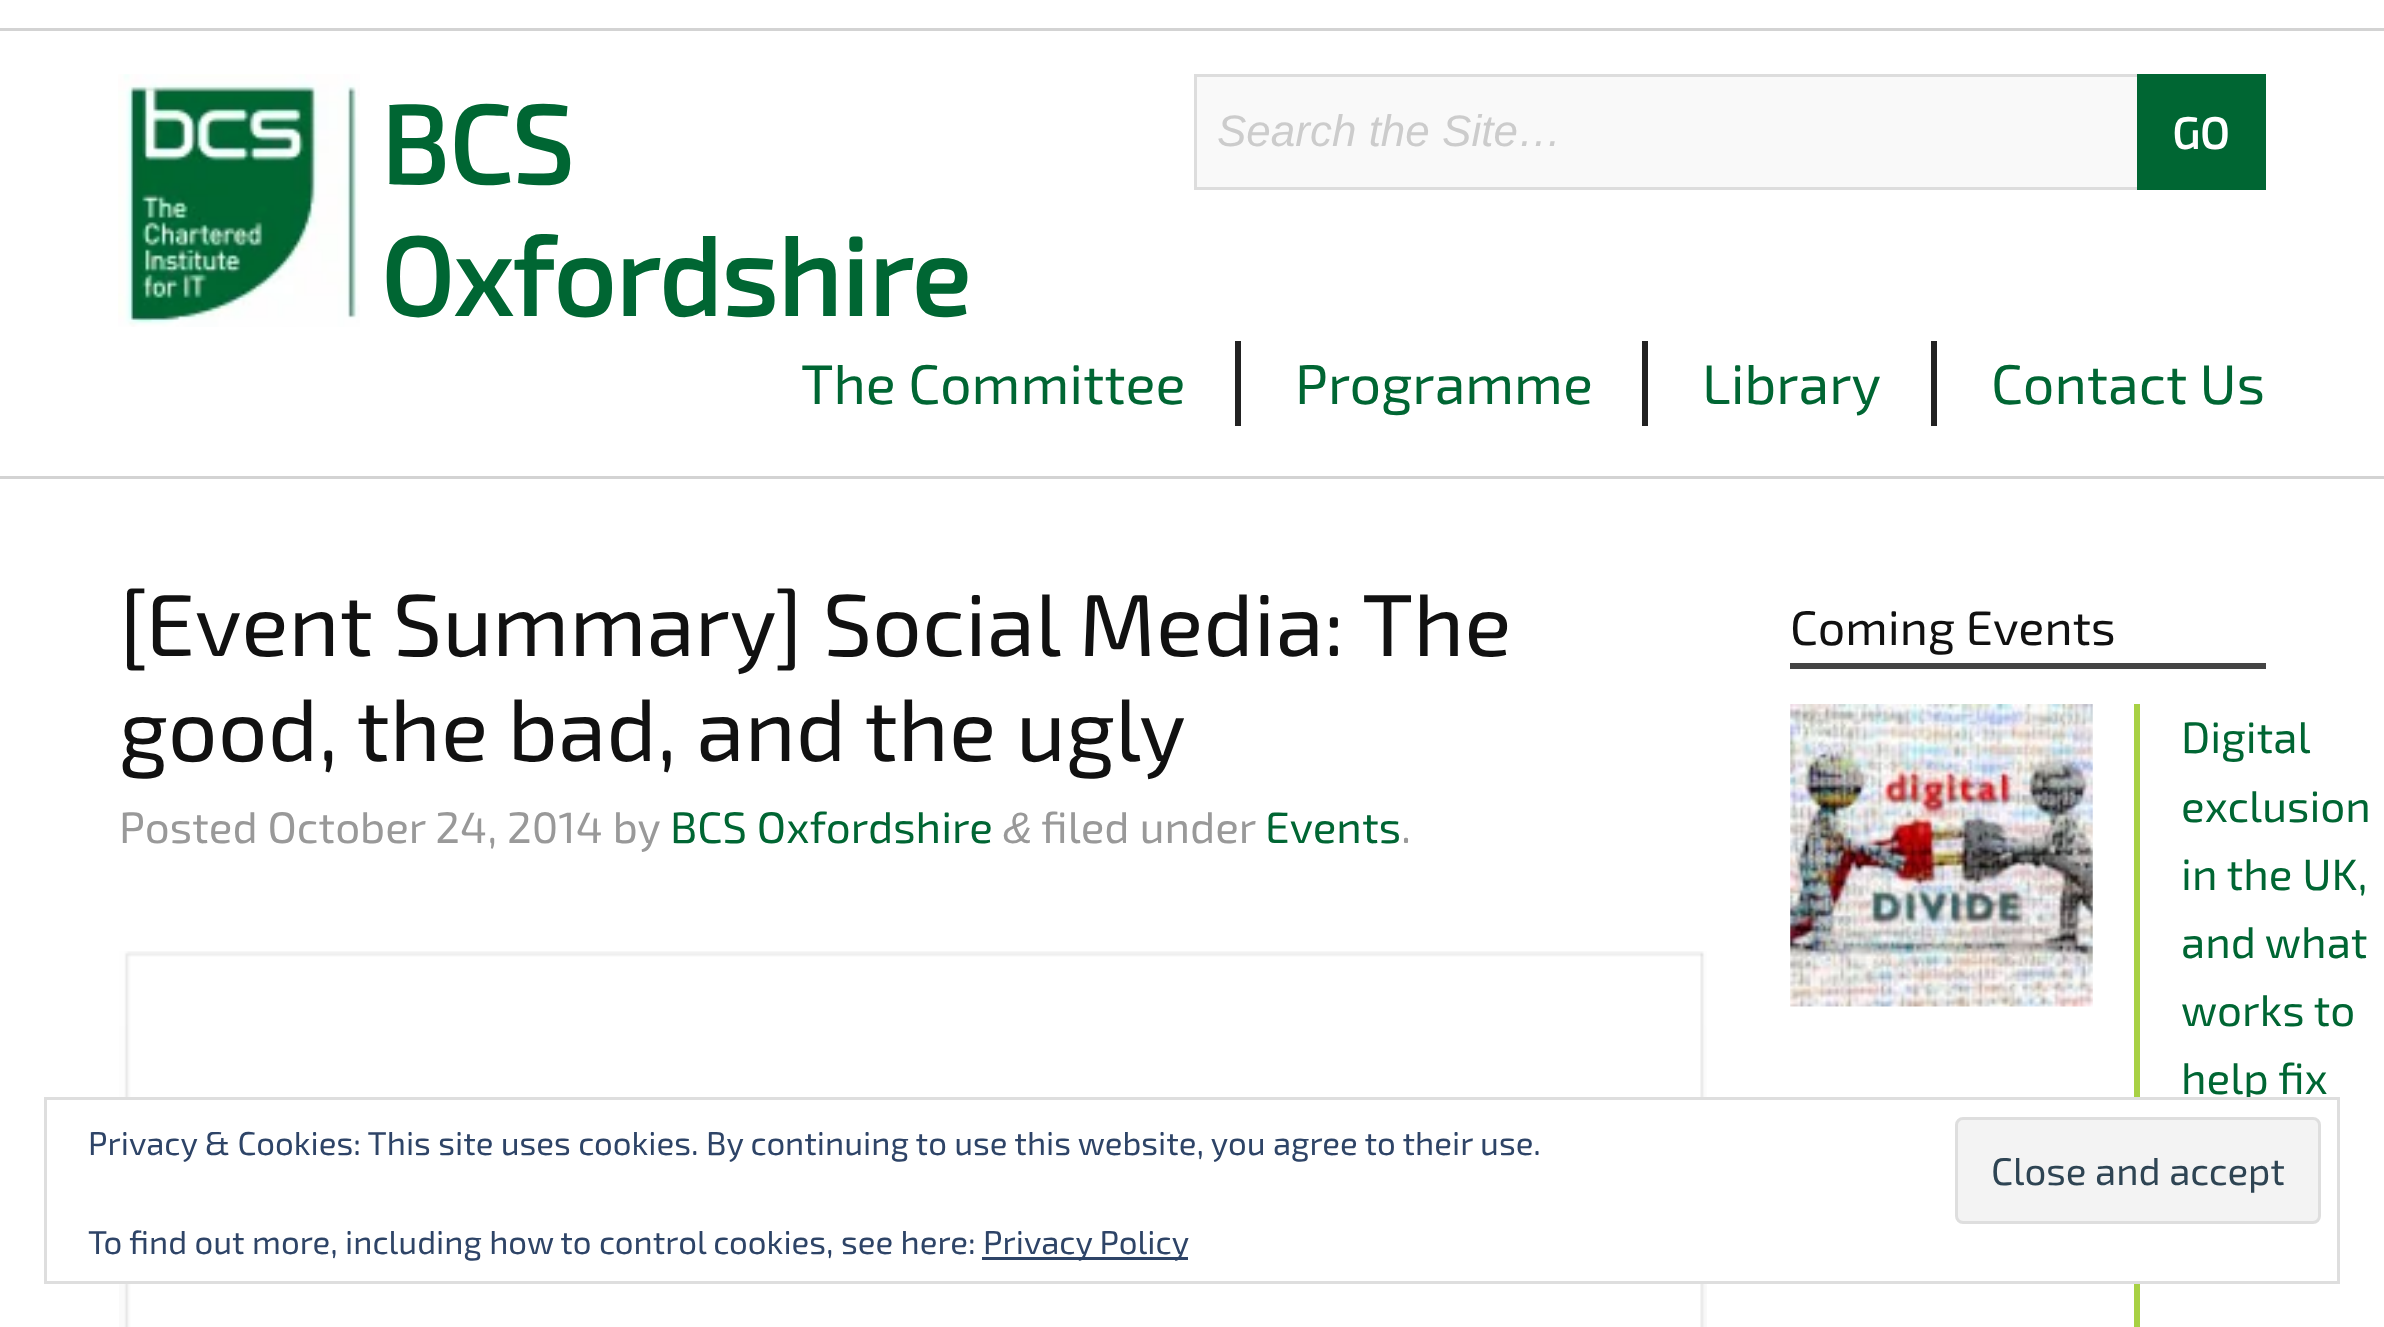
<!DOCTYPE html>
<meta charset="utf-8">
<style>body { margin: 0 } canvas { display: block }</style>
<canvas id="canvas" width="2384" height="1327"></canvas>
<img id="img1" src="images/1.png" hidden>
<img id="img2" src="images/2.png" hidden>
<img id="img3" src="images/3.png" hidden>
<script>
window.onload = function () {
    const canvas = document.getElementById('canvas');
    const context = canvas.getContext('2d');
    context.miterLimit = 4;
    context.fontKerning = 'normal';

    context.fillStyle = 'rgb(255, 255, 255)';
    context.fillRect(0, 0, 2384, 1327);
    context.fillStyle = 'rgb(211, 211, 211)';
    context.fillRect(0, 28, 2384, 3);
    context.drawImage(document.getElementById('img1'), 118, 74, 242, 253);
    context.fillStyle = 'rgb(249, 249, 249)';
    context.fillRect(1197, 77, 940, 110);
    context.strokeStyle = 'rgb(221, 221, 221)';
    context.lineWidth = 3;
    context.strokeRect(1195.5, 75.5, 1069, 113);
    context.fillStyle = 'rgb(0, 102, 51)';
    context.fillRect(2137, 74, 129, 116);
    context.fillStyle = 'rgb(211, 211, 211)';
    context.fillRect(0, 476, 2384, 3);
    context.fillStyle = 'rgb(34, 34, 34)';
    context.fillRect(1235, 341, 6, 85);
    context.fillRect(1642, 341, 6, 85);
    context.fillRect(1931, 341, 6, 85);
    context.drawImage(document.getElementById('img2'), 119, 951, 1588, 376);
    context.fillStyle = 'rgb(68, 68, 68)';
    context.fillRect(1790, 663, 476, 6);
    context.drawImage(document.getElementById('img3'), 1790, 704, 303, 303);
    context.fillStyle = 'rgb(168, 209, 68)';
    context.fillRect(2134, 704, 6, 623);
    context.font = 'bold 110px "Exo 2"';
    context.fillStyle = 'rgb(0, 102, 51)';
    context.fillText('BCS', 380, 184);
    context.fillText('Oxfordshire', 380, 316);
    context.font = 'italic 44px Liberation Sans';
    context.fillStyle = 'rgb(204, 204, 204)';
    context.fillText('Search the Site…', 1217, 146);
    context.font = 'bold 44px "Exo 2"';
    context.fillStyle = 'rgb(255, 255, 255)';
    context.fillText('GO', 2172, 149);
    context.font = '55.75px "Exo 2"';
    context.fillStyle = 'rgb(0, 102, 51)';
    context.fillText('The Committee', 801, 404);
    context.fillText('Programme', 1295, 404);
    context.fillText('Library', 1702, 404);
    context.fillText('Contact Us', 1991, 404);
    context.font = '88px "Exo 2"';
    context.fillStyle = 'rgb(17, 17, 17)';
    context.fillText('[Event Summary] Social Media: The', 119, 656);
    context.fillText('good, the bad, and the ugly', 119, 761);
    context.font = '44px "Exo 2"';
    context.fillStyle = 'rgb(153, 153, 153)';
    context.fillText('Posted October 24, 2014 by', 119, 843);
    context.fillStyle = 'rgb(0, 102, 51)';
    context.fillText('BCS Oxfordshire', 670, 843);
    context.font = 'italic 44px Liberation Sans';
    context.fillStyle = 'rgb(153, 153, 153)';
    context.fillText('&', 1003, 843);
    context.font = '44px "Exo 2"';
    context.fillText('filed under', 1041, 843);
    context.fillStyle = 'rgb(0, 102, 51)';
    context.fillText('Events', 1265, 843);
    context.fillStyle = 'rgb(153, 153, 153)';
    context.fillText('.', 1401, 843);
    context.font = '48.5px "Exo 2"';
    context.fillStyle = 'rgb(17, 17, 17)';
    context.fillText('Coming Events', 1790, 645);
    context.font = '44px "Exo 2"';
    context.fillStyle = 'rgb(0, 102, 51)';
    context.fillText('Digital', 2181, 753);
    context.fillText('exclusion', 2181, 822);
    context.fillText('in the UK,', 2181, 890);
    context.fillText('and what', 2181, 958);
    context.fillText('works to', 2181, 1026);
    context.fillText('help fix', 2181, 1094);
    context.fillStyle = 'rgb(255, 255, 255)';
    context.fillRect(119, 1100, 2132, 181);
    context.strokeStyle = 'rgb(222, 222, 222)';
    context.strokeRect(45.5, 1098.5, 2293, 184);
    context.font = '33px "Exo 2"';
    context.fillStyle = 'rgb(46, 68, 103)';
    context.fillText('Privacy & Cookies: This site uses cookies. By continuing to use this website, you agree to their use.', 88, 1155);
    context.fillStyle = 'rgb(243, 243, 243)';
    context.beginPath();
    context.roundRect(1956.5, 1118.5, 363, 104, 6.5);
    context.fill();
    context.stroke();
    context.font = '38.5px "Exo 2"';
    context.fillStyle = 'rgb(46, 68, 83)';
    context.fillText('Close and accept', 1991, 1185);
    context.font = '33px "Exo 2"';
    context.fillStyle = 'rgb(46, 68, 103)';
    context.fillText('To find out more, including how to control cookies, see here:', 88, 1254);
    context.fillRect(982, 1257, 206, 3);
    context.fillText('Privacy Policy', 983, 1254);
};
</script>
